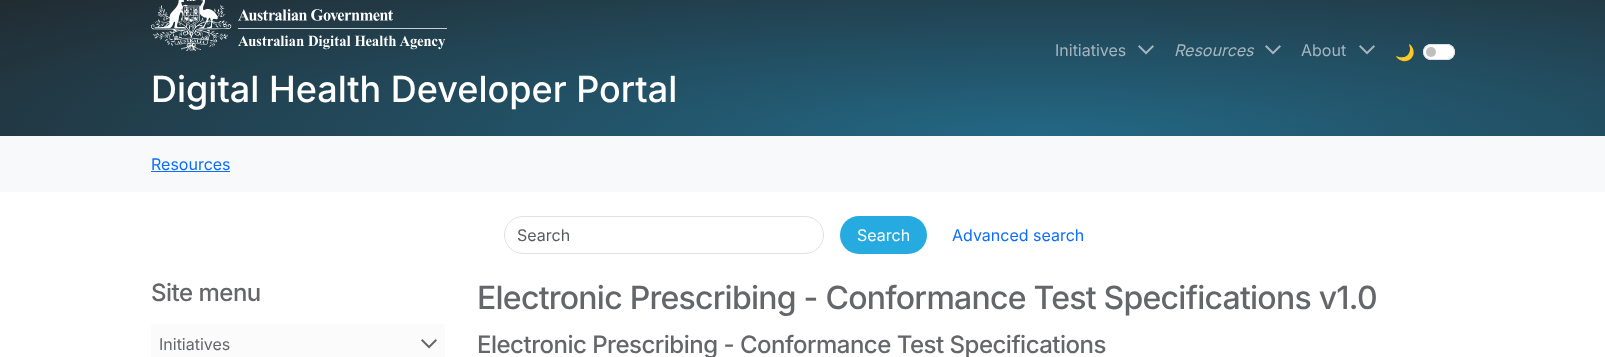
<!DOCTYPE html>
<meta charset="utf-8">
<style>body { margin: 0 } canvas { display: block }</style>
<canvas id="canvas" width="1605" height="357"></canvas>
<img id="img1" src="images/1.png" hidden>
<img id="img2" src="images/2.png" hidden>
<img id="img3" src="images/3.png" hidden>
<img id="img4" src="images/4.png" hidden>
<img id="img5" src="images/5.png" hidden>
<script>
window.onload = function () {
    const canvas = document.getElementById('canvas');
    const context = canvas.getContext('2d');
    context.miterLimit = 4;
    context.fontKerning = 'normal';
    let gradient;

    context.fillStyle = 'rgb(255, 255, 255)';
    context.fillRect(0, 0, 1605, 357);
    gradient = context.createRadialGradient(1043, 839.33, 0, 1043, 839.33, 1475);
    gradient.addColorStop(0, 'rgb(35, 104, 133)');
    gradient.addColorStop(1, 'rgb(33, 37, 41)');
    context.fillStyle = gradient;
    context.beginPath();
    context.rect(0, 0, 1605, 136);
    context.save();
    context.clip();
    context.scale(1, 239 / 1475);
    context.fillRect(0, 0, 1605, 2204);
    context.restore();
    context.drawImage(document.getElementById('img1'), 1138, 45, 16, 10);
    context.drawImage(document.getElementById('img2'), 1265, 45, 16, 10);
    context.drawImage(document.getElementById('img3'), 1359, 45, 16, 10);
    context.fillStyle = 'rgb(255, 255, 255)';
    context.beginPath();
    context.roundRect(1423, 44, 32, 16, 8);
    context.fill();
    context.fillStyle = 'rgb(191, 191, 191)';
    context.beginPath();
    context.arc(1431, 52, 5, 0, 2 * Math.PI);
    context.fill();
    context.beginPath();
    context.roundRect(1423.5, 44.5, 31, 15, 7.5);
    context.strokeStyle = 'rgb(222, 226, 230)';
    context.stroke();
    context.drawImage(document.getElementById('img4'), 151, 0, 296, 51);
    context.fillStyle = 'rgb(248, 249, 250)';
    context.fillRect(0, 136, 1605, 56);
    context.fillStyle = 'rgb(13, 110, 253)';
    context.fillRect(151, 171, 79, 1);
    context.beginPath();
    context.roundRect(504.5, 216.5, 319, 37, 18.5);
    context.stroke();
    context.fillStyle = 'rgb(37, 171, 224)';
    context.beginPath();
    context.roundRect(840, 216, 87, 38, 19);
    context.fill();
    context.fillStyle = 'rgb(251, 251, 251)';
    context.fillRect(151, 324, 294, 33);
    context.drawImage(document.getElementById('img5'), 421, 339, 16, 10);
    context.font = '16px Inter';
    context.fillStyle = 'rgb(166, 182, 191)';
    context.fillText('Initiatives', 1055, 56);
    context.font = 'italic 16px Inter';
    context.fillText('Resources', 1174, 56);
    context.font = '16px Inter';
    context.fillText('About', 1301, 56);
    context.font = '16px Noto Color Emoji';
    context.fillStyle = 'rgb(222, 226, 230)';
    context.fillText('🌙', 1395, 58);
    context.font = '500 36px Inter';
    context.fillStyle = 'rgb(255, 255, 255)';
    context.fillText('Digital Health Developer Portal', 151, 102);
    context.font = '16px Inter';
    context.fillStyle = 'rgb(13, 110, 253)';
    context.fillText('Resources', 151, 170);
    context.fillStyle = 'rgb(89, 92, 95)';
    context.fillText('Search', 517, 241);
    context.fillStyle = 'rgb(255, 255, 255)';
    context.fillText('Search', 857, 241);
    context.fillStyle = 'rgb(13, 110, 253)';
    context.fillText('Advanced search', 952, 241);
    context.letterSpacing = '-0.5px';
    context.font = '500 24px Inter';
    context.fillStyle = 'rgb(100, 102, 105)';
    context.fillText('Site menu', 151, 301);
    context.letterSpacing = '0px';
    context.font = '16px Inter';
    context.fillText('Initiatives', 159, 350);
    context.letterSpacing = '-0.75px';
    context.font = '500 32px Inter';
    context.fillText('Electronic Prescribing - Conformance Test Specifications v1.0', 477, 309);
    context.letterSpacing = '-0.5px';
    context.font = '500 24px Inter';
    context.fillText('Electronic Prescribing - Conformance Test Specifications', 477, 353);
};
</script>
